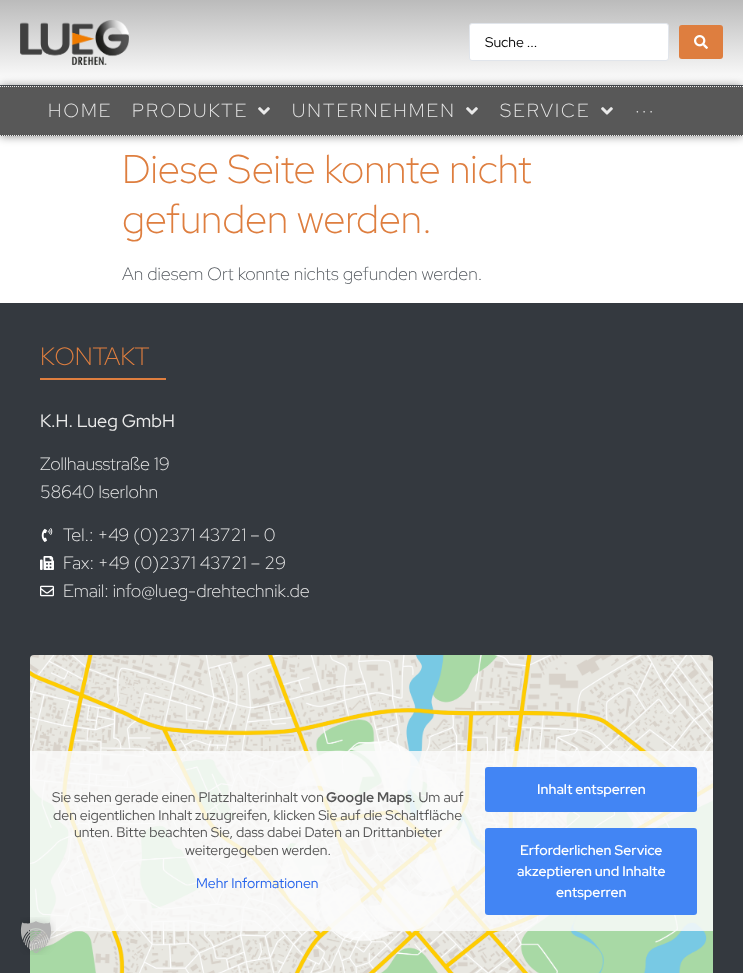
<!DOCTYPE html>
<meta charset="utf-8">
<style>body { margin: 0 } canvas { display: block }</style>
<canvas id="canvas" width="743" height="973"></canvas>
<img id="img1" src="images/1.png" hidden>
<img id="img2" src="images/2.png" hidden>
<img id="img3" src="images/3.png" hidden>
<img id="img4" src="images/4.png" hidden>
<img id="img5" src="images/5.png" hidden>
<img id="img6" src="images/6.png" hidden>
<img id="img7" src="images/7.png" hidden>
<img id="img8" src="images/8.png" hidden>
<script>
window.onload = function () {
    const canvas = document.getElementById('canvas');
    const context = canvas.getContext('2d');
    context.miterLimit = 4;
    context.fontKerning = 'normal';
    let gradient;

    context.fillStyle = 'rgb(255, 255, 255)';
    context.fillRect(0, 0, 743, 973);
    gradient = context.createLinearGradient(372, 0, 372, 85);
    gradient.addColorStop(0, 'rgb(187, 187, 187)');
    gradient.addColorStop(1, 'rgb(255, 255, 255)');
    context.fillStyle = gradient;
    context.fillRect(0, 0, 743, 82);
    context.fillStyle = 'rgb(84, 89, 95)';
    context.fillRect(0, 85, 743, 1);
    context.drawImage(document.getElementById('img1'), 20, 20, 109, 45);
    context.fillStyle = 'rgb(255, 255, 255)';
    context.beginPath();
    context.roundRect(469.5, 23.5, 199, 37, 2.5);
    context.fill();
    context.strokeStyle = 'rgb(225, 229, 235)';
    context.stroke();
    context.fillStyle = 'rgb(222, 126, 63)';
    context.beginPath();
    context.roundRect(679, 25, 44, 34, 3);
    context.fill();
    context.drawImage(document.getElementById('img2'), 694, 35, 14, 14);
    context.fillStyle = 'rgba(0, 0, 0, 0.5)';
    context.filter = 'blur(5px)';
    context.beginPath();
    context.rect(0, 86, 743, 50);
    context.fill();
    context.filter = 'none';
    context.fillStyle = 'rgb(88, 88, 88)';
    context.fillRect(0, 86, 743, 50);
    context.beginPath();
    context.moveTo(0, 86.5);
    context.lineTo(743, 86.5);
    context.strokeStyle = 'rgb(234, 234, 234)';
    context.setLineDash([1, 1]);
    context.stroke();
    context.beginPath();
    context.moveTo(0, 135.5);
    context.lineTo(743, 135.5);
    context.stroke();
    context.drawImage(document.getElementById('img3'), 258, 107, 12, 8);
    context.drawImage(document.getElementById('img3'), 466, 107, 12, 8);
    context.drawImage(document.getElementById('img3'), 601, 107, 12, 8);
    context.fillStyle = 'rgb(52, 57, 63)';
    context.fillRect(0, 303, 743, 670);
    context.fillStyle = 'rgb(222, 126, 63)';
    context.fillRect(40, 378, 126, 2);
    context.drawImage(document.getElementById('img4'), 41, 528, 12, 14);
    context.drawImage(document.getElementById('img5'), 40, 556, 14, 14);
    context.drawImage(document.getElementById('img6'), 40, 585, 14, 12);
    context.drawImage(document.getElementById('img7'), 30, 655, 683, 318);
    context.fillStyle = 'rgba(250, 250, 250, 0.85)';
    context.fillRect(30, 751, 683, 180);
    context.fillStyle = 'rgb(66, 133, 244)';
    context.beginPath();
    context.roundRect(485, 767, 212, 45, 3);
    context.fill();
    context.beginPath();
    context.roundRect(485, 828, 212, 87, 3);
    context.fill();
    context.drawImage(document.getElementById('img8'), 20, 917, 36, 38);
    context.font = '14px Red Hat Display';
    context.fillStyle = 'rgb(0, 0, 0)';
    context.fillText('Suche ...', 485, 47);
    context.letterSpacing = '2.1px';
    context.font = '300 19px Red Hat Display';
    context.fillStyle = 'rgb(234, 234, 234)';
    context.fillText('HOME', 48, 117);
    context.fillText('PRODUKTE', 132, 117);
    context.fillText('UNTERNEHMEN', 292, 117);
    context.fillText('SERVICE', 500, 117);
    context.fillText('···', 635, 117);
    context.letterSpacing = '0px';
    context.font = '300 40px Red Hat Display';
    context.fillStyle = 'rgb(222, 126, 63)';
    context.fillText('Diese Seite konnte nicht', 122, 183);
    context.fillText('gefunden werden.', 122, 233);
    context.font = '300 18px Red Hat Display';
    context.fillStyle = 'rgb(84, 89, 95)';
    context.fillText('An diesem Ort konnte nichts gefunden werden.', 122, 280);
    context.font = '300 25px Red Hat Display';
    context.fillStyle = 'rgb(222, 126, 63)';
    context.fillText('KONTAKT', 40, 365);
    context.font = '18px Red Hat Display';
    context.fillStyle = 'rgb(234, 234, 234)';
    context.fillText('K.H. Lueg GmbH', 40, 427);
    context.font = '300 18px Red Hat Display';
    context.fillText('Zollhausstraße 19', 40, 470);
    context.fillText('58640 Iserlohn', 40, 498);
    context.fillText('Tel.: +49 (0)2371 43721 – 0', 63, 541);
    context.fillText('Fax: +49 (0)2371 43721 – 29', 63, 569);
    context.fillText('Email: info@lueg-drehtechnik.de', 63, 597);
    context.font = '14px Red Hat Display';
    context.fillStyle = 'rgb(85, 85, 85)';
    context.fillText('Sie sehen gerade einen Platzhalterinhalt von', 52, 802);
    context.font = 'bold 14px Red Hat Display';
    context.fillText('Google Maps', 326, 802);
    context.font = '14px Red Hat Display';
    context.fillText('. Um auf', 412, 802);
    context.fillText('den eigentlichen Inhalt zuzugreifen, klicken Sie auf die Schaltfläche', 53, 820);
    context.fillText('unten. Bitte beachten Sie, dass dabei Daten an Drittanbieter', 74, 837);
    context.fillText('weitergegeben werden.', 185, 855);
    context.fillStyle = 'rgb(37, 99, 235)';
    context.fillText('Mehr Informationen', 196, 888);
    context.font = '600 14px Red Hat Display';
    context.fillStyle = 'rgb(255, 255, 255)';
    context.fillText('Inhalt entsperren', 537, 794);
    context.fillText('Erforderlichen Service', 520, 855);
    context.fillText('akzeptieren und Inhalte', 517, 876);
    context.fillText('entsperren', 556, 897);
};
</script>
